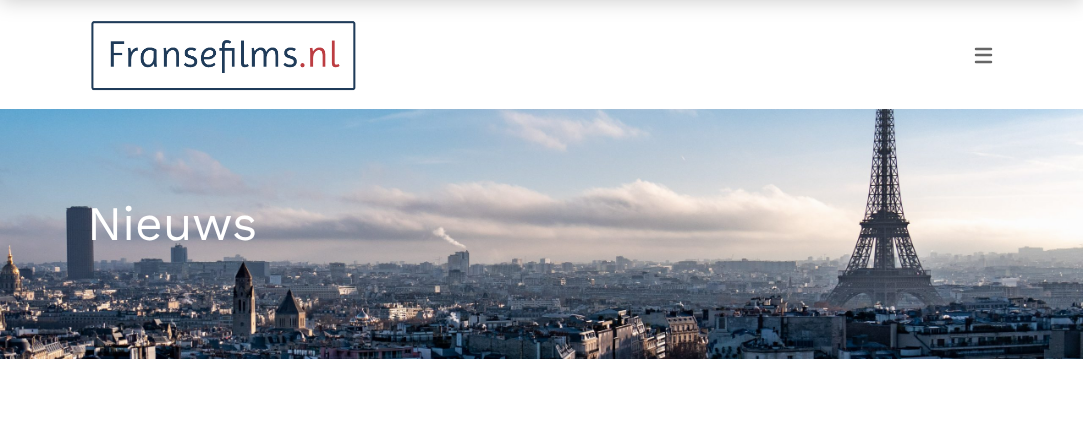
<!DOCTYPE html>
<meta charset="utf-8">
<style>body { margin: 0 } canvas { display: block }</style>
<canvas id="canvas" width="1083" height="431"></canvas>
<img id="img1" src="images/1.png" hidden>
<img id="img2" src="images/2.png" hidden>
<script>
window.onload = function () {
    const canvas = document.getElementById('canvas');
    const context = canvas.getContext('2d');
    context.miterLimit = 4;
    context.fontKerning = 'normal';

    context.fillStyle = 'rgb(255, 255, 255)';
    context.fillRect(0, 0, 1083, 431);
    context.drawImage(document.getElementById('img1'), 91, 21, 265, 70);
    context.fillStyle = 'rgba(0, 0, 0, 0.2)';
    context.filter = 'blur(10px)';
    context.beginPath();
    context.rect(0, -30, 1083, 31);
    context.fill();
    context.filter = 'none';
    context.beginPath();
    context.moveTo(976, 49);
    context.lineTo(991, 49);
    context.moveTo(976, 55);
    context.lineTo(991, 55);
    context.moveTo(976, 62);
    context.lineTo(991, 62);
    context.strokeStyle = 'rgb(102, 102, 102)';
    context.lineWidth = 2.5;
    context.lineCap = 'round';
    context.stroke();
    context.drawImage(document.getElementById('img2'), 0, 109, 1083, 250);
    context.font = '48px Work Sans';
    context.fillStyle = 'rgb(255, 255, 255)';
    context.fillText('Nieuws', 87, 240);
};
</script>
